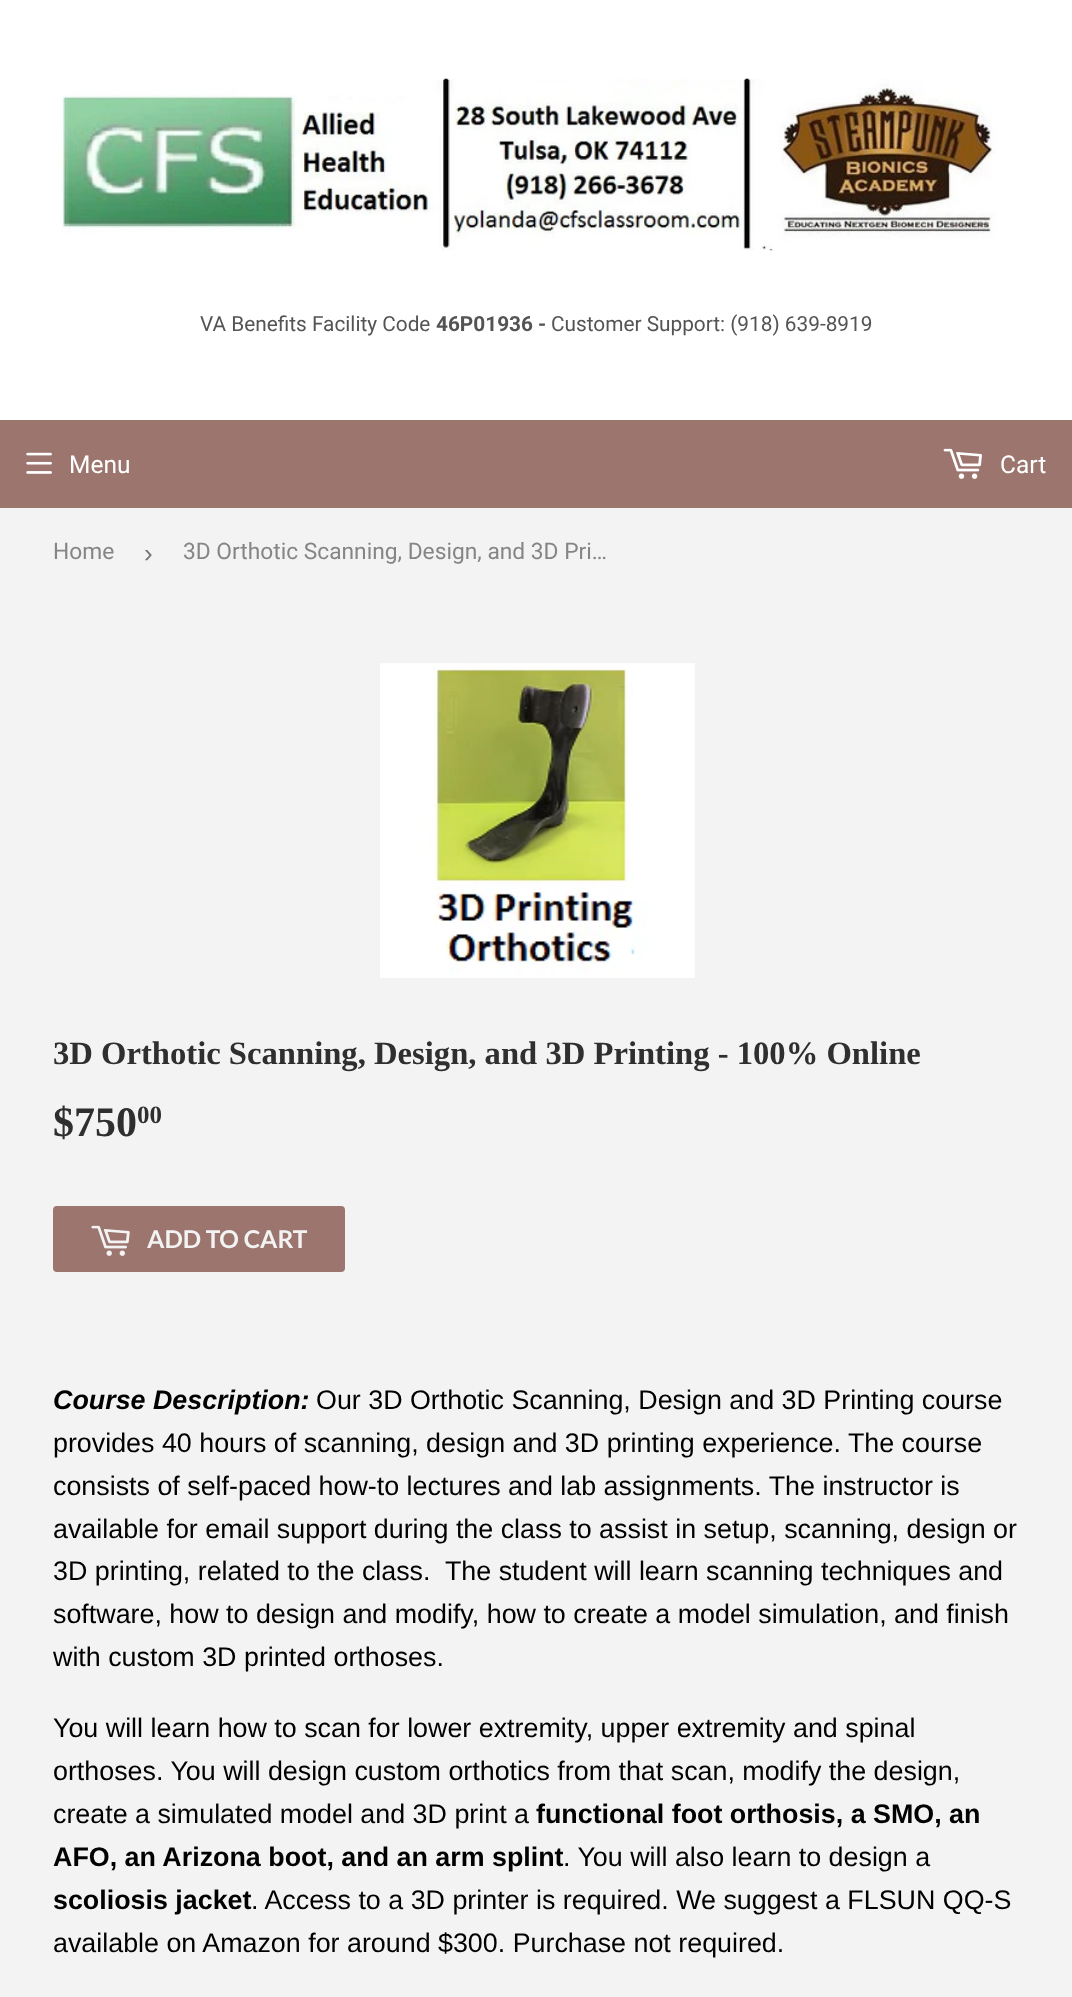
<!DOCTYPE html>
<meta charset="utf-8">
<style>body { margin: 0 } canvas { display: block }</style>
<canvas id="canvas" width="1072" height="1997"></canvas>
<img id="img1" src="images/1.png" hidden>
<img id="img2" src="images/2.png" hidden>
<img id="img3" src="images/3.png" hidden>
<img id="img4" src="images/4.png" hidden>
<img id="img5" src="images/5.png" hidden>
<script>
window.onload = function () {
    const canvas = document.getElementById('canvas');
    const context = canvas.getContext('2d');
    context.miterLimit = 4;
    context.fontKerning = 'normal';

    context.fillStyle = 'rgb(243, 243, 243)';
    context.fillRect(0, 0, 1072, 1997);
    context.fillStyle = 'rgb(255, 255, 255)';
    context.fillRect(0, 0, 1072, 420);
    context.drawImage(document.getElementById('img1'), 61, 78, 935, 173);
    context.fillStyle = 'rgb(156, 117, 111)';
    context.fillRect(0, 420, 1072, 88);
    context.drawImage(document.getElementById('img2'), 26, 452, 26, 22);
    context.drawImage(document.getElementById('img3'), 943, 448, 39, 31);
    context.drawImage(document.getElementById('img4'), 380, 663, 315, 315);
    context.beginPath();
    context.roundRect(53, 1206, 292, 66, 4);
    context.fill();
    context.drawImage(document.getElementById('img5'), 91, 1225, 39, 31);
    context.font = '20.8px Roboto';
    context.fillStyle = 'rgb(84, 84, 84)';
    context.fillText('VA Benefits Facility Code', 200, 331);
    context.font = 'bold 20.8px Roboto';
    context.fillText('46P01936 -', 436, 331);
    context.font = '20.8px Roboto';
    context.fillText('Customer Support: (918) 639-8919', 551, 331);
    context.font = '24.5px Roboto';
    context.fillStyle = 'rgb(255, 255, 255)';
    context.fillText('Menu', 69, 473);
    context.fillText('Cart', 1000, 473);
    context.font = '22.75px Roboto';
    context.fillStyle = 'rgb(133, 133, 133)';
    context.fillText('Home', 53, 559);
    context.font = '26px Liberation Sans';
    context.fillStyle = 'rgb(118, 118, 118)';
    context.fillText('›', 144, 562);
    context.font = '22.75px Roboto';
    context.fillStyle = 'rgb(133, 133, 133)';
    context.fillText('3D Orthotic Scanning, Design, and 3D Pri…', 183, 559);
    context.font = 'bold 32.65px Liberation Serif';
    context.fillStyle = 'rgb(47, 47, 47)';
    context.fillText('3D Orthotic Scanning, Design, and 3D Printing - 100% Online', 53, 1064);
    context.font = 'bold 42px Liberation Serif';
    context.fillText('$750', 53, 1136);
    context.font = 'bold 25px Liberation Serif';
    context.fillText('00', 137, 1123);
    context.font = 'bold 24.5px Lato';
    context.fillStyle = 'rgb(243, 243, 243)';
    context.fillText('ADD TO CART', 147, 1248);
    context.font = 'italic bold 26.85px Liberation Sans';
    context.fillStyle = 'rgb(0, 0, 0)';
    context.fillText('Course Description:', 53, 1409);
    context.font = '26.85px Liberation Sans';
    context.fillText('Our 3D Orthotic Scanning, Design and 3D Printing course', 316, 1409);
    context.fillText('provides 40 hours of scanning, design and 3D printing experience. The course', 53, 1452);
    context.fillText('consists of self-paced how-to lectures and lab assignments. The instructor is', 53, 1495);
    context.fillText('available for email support during the class to assist in setup, scanning, design or', 53, 1538);
    context.fillText('3D printing, related to the class.  The student will learn scanning techniques and', 53, 1580);
    context.fillText('software, how to design and modify, how to create a model simulation, and finish', 53, 1623);
    context.fillText('with custom 3D printed orthoses.', 53, 1666);
    context.fillText('You will learn how to scan for lower extremity, upper extremity and spinal', 53, 1737);
    context.fillText('orthoses. You will design custom orthotics from that scan, modify the design,', 53, 1780);
    context.fillText('create a simulated model and 3D print a', 53, 1823);
    context.font = 'bold 26.85px Liberation Sans';
    context.fillText('functional foot orthosis, a SMO, an', 536, 1823);
    context.fillText('AFO, an Arizona boot, and an arm splint', 53, 1866);
    context.font = '26.85px Liberation Sans';
    context.fillText('. You will also learn to design a', 563, 1866);
    context.font = 'bold 26.85px Liberation Sans';
    context.fillText('scoliosis jacket', 53, 1909);
    context.font = '26.85px Liberation Sans';
    context.fillText('. Access to a 3D printer is required. We suggest a FLSUN QQ-S', 251, 1909);
    context.fillText('available on Amazon for around $300. Purchase not required.', 53, 1952);
};
</script>
